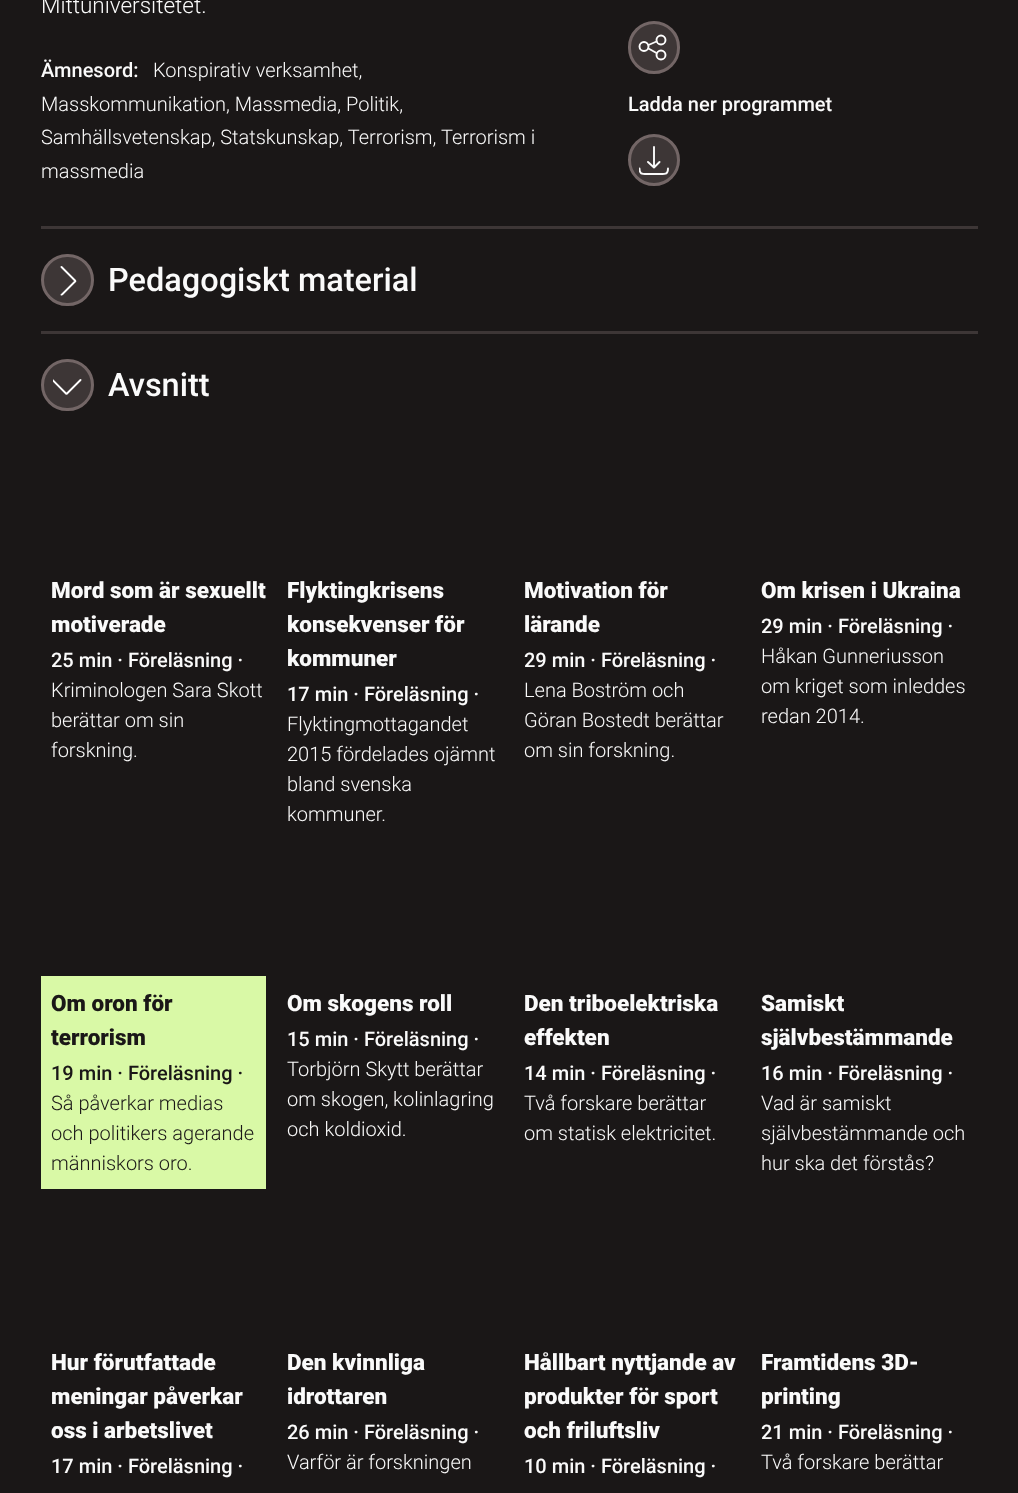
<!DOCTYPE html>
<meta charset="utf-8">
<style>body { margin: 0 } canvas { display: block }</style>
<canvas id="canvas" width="1018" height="1493"></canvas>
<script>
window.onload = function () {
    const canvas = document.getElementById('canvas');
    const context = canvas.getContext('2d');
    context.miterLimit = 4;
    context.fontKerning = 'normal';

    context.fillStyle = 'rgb(26, 23, 23)';
    context.fillRect(0, 0, 1018, 1493);
    context.fillStyle = 'rgb(61, 54, 54)';
    context.beginPath();
    context.roundRect(629.5, 22.5, 49, 50, 24.5);
    context.fill();
    context.strokeStyle = 'rgb(115, 102, 102)';
    context.lineWidth = 3;
    context.stroke();
    context.beginPath();
    context.arc(644, 46.5, 4.5, 0, 2 * Math.PI);
    context.strokeStyle = 'rgb(255, 255, 255)';
    context.lineWidth = 1.9;
    context.stroke();
    context.beginPath();
    context.arc(661, 40, 4.5, 0, 2 * Math.PI);
    context.stroke();
    context.beginPath();
    context.arc(661, 55, 4.5, 0, 2 * Math.PI);
    context.stroke();
    context.beginPath();
    context.moveTo(648.5, 45);
    context.lineTo(656.5, 41.5);
    context.moveTo(648.5, 48.5);
    context.lineTo(656.5, 53);
    context.strokeStyle = 'rgb(250, 250, 250)';
    context.lineCap = 'round';
    context.lineJoin = 'round';
    context.stroke();
    context.beginPath();
    context.arc(654, 160, 24.5, 0, 2 * Math.PI);
    context.fill();
    context.strokeStyle = 'rgb(115, 102, 102)';
    context.lineWidth = 3;
    context.stroke();
    context.save();
    context.beginPath();
    context.rect(639, 145, 30, 30);
    context.clip();
    context.beginPath();
    context.moveTo(654, 147);
    context.lineTo(654, 167.5);
    context.moveTo(648, 162);
    context.lineTo(654, 167.5);
    context.lineTo(659.5, 162);
    context.moveTo(668, 168.5);
    context.bezierCurveTo(668, 174, 666, 174, 660.5, 174);
    context.lineTo(647, 174);
    context.bezierCurveTo(641.5, 174, 639.5, 174, 639.5, 168.5);
    context.strokeStyle = 'rgb(250, 250, 250)';
    context.lineWidth = 1.9;
    context.stroke();
    context.restore();
    context.fillRect(41, 226, 937, 3);
    context.beginPath();
    context.roundRect(42.5, 255.5, 50, 49, 24.5);
    context.fill();
    context.lineJoin = 'miter';
    context.stroke();
    context.save();
    context.beginPath();
    context.moveTo(82, 265.5);
    context.lineTo(82, 295.5);
    context.lineTo(52, 295.5);
    context.lineTo(52, 265.5);
    context.closePath();
    context.clip();
    context.beginPath();
    context.moveTo(61.5, 295);
    context.lineTo(75, 281.5);
    context.bezierCurveTo(75.5, 281.5, 75.5, 281, 75, 280.5);
    context.lineTo(61.5, 267);
    context.strokeStyle = 'rgb(255, 255, 255)';
    context.lineWidth = 1.9;
    context.lineJoin = 'round';
    context.stroke();
    context.restore();
    context.fillRect(41, 331, 937, 3);
    context.beginPath();
    context.roundRect(42.5, 360.5, 50, 49, 24.5);
    context.fill();
    context.stroke();
    context.save();
    context.beginPath();
    context.rect(53, 370, 30, 30);
    context.clip();
    context.beginPath();
    context.moveTo(52.5, 380);
    context.lineTo(66, 393.5);
    context.bezierCurveTo(66, 394, 67, 394, 67, 393.5);
    context.lineTo(80.5, 380);
    context.strokeStyle = 'rgb(255, 255, 255)';
    context.lineWidth = 1.9;
    context.lineJoin = 'round';
    context.stroke();
    context.restore();
    context.fillStyle = 'rgb(217, 249, 166)';
    context.fillRect(41, 976, 225, 213);
    context.font = '300 22.5px Roboto';
    context.fillStyle = 'rgb(250, 250, 250)';
    context.fillText('Mittuniversitetet.', 41, 13);
    context.font = '500 20px Roboto';
    context.fillText('Ämnesord:', 41, 77);
    context.font = '300 20px Roboto';
    context.fillText('Konspirativ verksamhet,', 153, 77);
    context.fillText('Masskommunikation, Massmedia, Politik,', 41, 111);
    context.fillText('Samhällsvetenskap, Statskunskap, Terrorism, Terrorism i', 41, 144);
    context.fillText('massmedia', 41, 178);
    context.font = '500 20px Roboto';
    context.fillText('Ladda ner programmet', 628, 111);
    context.font = '500 32.5px Roboto';
    context.fillText('Pedagogiskt material', 108, 291);
    context.fillText('Avsnitt', 108, 396);
    context.font = '900 22.5px Roboto';
    context.fillText('Mord som är sexuellt', 51, 598);
    context.fillText('motiverade', 51, 632);
    context.font = '500 20px Roboto';
    context.fillText('25 min · Föreläsning ·', 51, 667);
    context.font = '300 20px Roboto';
    context.fillText('Kriminologen Sara Skott', 51, 697);
    context.fillText('berättar om sin', 51, 727);
    context.fillText('forskning.', 51, 757);
    context.font = '900 22.5px Roboto';
    context.fillText('Flyktingkrisens', 287, 598);
    context.fillText('konsekvenser för', 287, 632);
    context.fillText('kommuner', 287, 666);
    context.font = '500 20px Roboto';
    context.fillText('17 min · Föreläsning ·', 287, 701);
    context.font = '300 20px Roboto';
    context.fillText('Flyktingmottagandet', 287, 731);
    context.fillText('2015 fördelades ojämnt', 287, 761);
    context.fillText('bland svenska', 287, 791);
    context.fillText('kommuner.', 287, 821);
    context.font = '900 22.5px Roboto';
    context.fillText('Motivation för', 524, 598);
    context.fillText('lärande', 524, 632);
    context.font = '500 20px Roboto';
    context.fillText('29 min · Föreläsning ·', 524, 667);
    context.font = '300 20px Roboto';
    context.fillText('Lena Boström och', 524, 697);
    context.fillText('Göran Bostedt berättar', 524, 727);
    context.fillText('om sin forskning.', 524, 757);
    context.font = '900 22.5px Roboto';
    context.fillText('Om krisen i Ukraina', 761, 598);
    context.font = '500 20px Roboto';
    context.fillText('29 min · Föreläsning ·', 761, 633);
    context.font = '300 20px Roboto';
    context.fillText('Håkan Gunneriusson', 761, 663);
    context.fillText('om kriget som inleddes', 761, 693);
    context.fillText('redan 2014.', 761, 723);
    context.font = '900 22.5px Roboto';
    context.fillStyle = 'rgb(26, 23, 23)';
    context.fillText('Om oron för', 51, 1011);
    context.fillText('terrorism', 51, 1045);
    context.font = '500 20px Roboto';
    context.fillText('19 min · Föreläsning ·', 51, 1080);
    context.font = '300 20px Roboto';
    context.fillText('Så påverkar medias', 51, 1110);
    context.fillText('och politikers agerande', 51, 1140);
    context.fillText('människors oro.', 51, 1170);
    context.font = '900 22.5px Roboto';
    context.fillStyle = 'rgb(250, 250, 250)';
    context.fillText('Om skogens roll', 287, 1011);
    context.font = '500 20px Roboto';
    context.fillText('15 min · Föreläsning ·', 287, 1046);
    context.font = '300 20px Roboto';
    context.fillText('Torbjörn Skytt berättar', 287, 1076);
    context.fillText('om skogen, kolinlagring', 287, 1106);
    context.fillText('och koldioxid.', 287, 1136);
    context.font = '900 22.5px Roboto';
    context.fillText('Den triboelektriska', 524, 1011);
    context.fillText('effekten', 524, 1045);
    context.font = '500 20px Roboto';
    context.fillText('14 min · Föreläsning ·', 524, 1080);
    context.font = '300 20px Roboto';
    context.fillText('Två forskare berättar', 524, 1110);
    context.fillText('om statisk elektricitet.', 524, 1140);
    context.font = '900 22.5px Roboto';
    context.fillText('Samiskt', 761, 1011);
    context.fillText('självbestämmande', 761, 1045);
    context.font = '500 20px Roboto';
    context.fillText('16 min · Föreläsning ·', 761, 1080);
    context.font = '300 20px Roboto';
    context.fillText('Vad är samiskt', 761, 1110);
    context.fillText('självbestämmande och', 761, 1140);
    context.fillText('hur ska det förstås?', 761, 1170);
    context.font = '900 22.5px Roboto';
    context.fillText('Hur förutfattade', 51, 1370);
    context.fillText('meningar påverkar', 51, 1404);
    context.fillText('oss i arbetslivet', 51, 1438);
    context.font = '500 20px Roboto';
    context.fillText('17 min · Föreläsning ·', 51, 1473);
    context.font = '900 22.5px Roboto';
    context.fillText('Den kvinnliga', 287, 1370);
    context.fillText('idrottaren', 287, 1404);
    context.font = '500 20px Roboto';
    context.fillText('26 min · Föreläsning ·', 287, 1439);
    context.font = '300 20px Roboto';
    context.fillText('Varför är forskningen', 287, 1469);
    context.font = '900 22.5px Roboto';
    context.fillText('Hållbart nyttjande av', 524, 1370);
    context.fillText('produkter för sport', 524, 1404);
    context.fillText('och friluftsliv', 524, 1438);
    context.font = '500 20px Roboto';
    context.fillText('10 min · Föreläsning ·', 524, 1473);
    context.font = '900 22.5px Roboto';
    context.fillText('Framtidens 3D-', 761, 1370);
    context.fillText('printing', 761, 1404);
    context.font = '500 20px Roboto';
    context.fillText('21 min · Föreläsning ·', 761, 1439);
    context.font = '300 20px Roboto';
    context.fillText('Två forskare berättar', 761, 1469);
};
</script>
